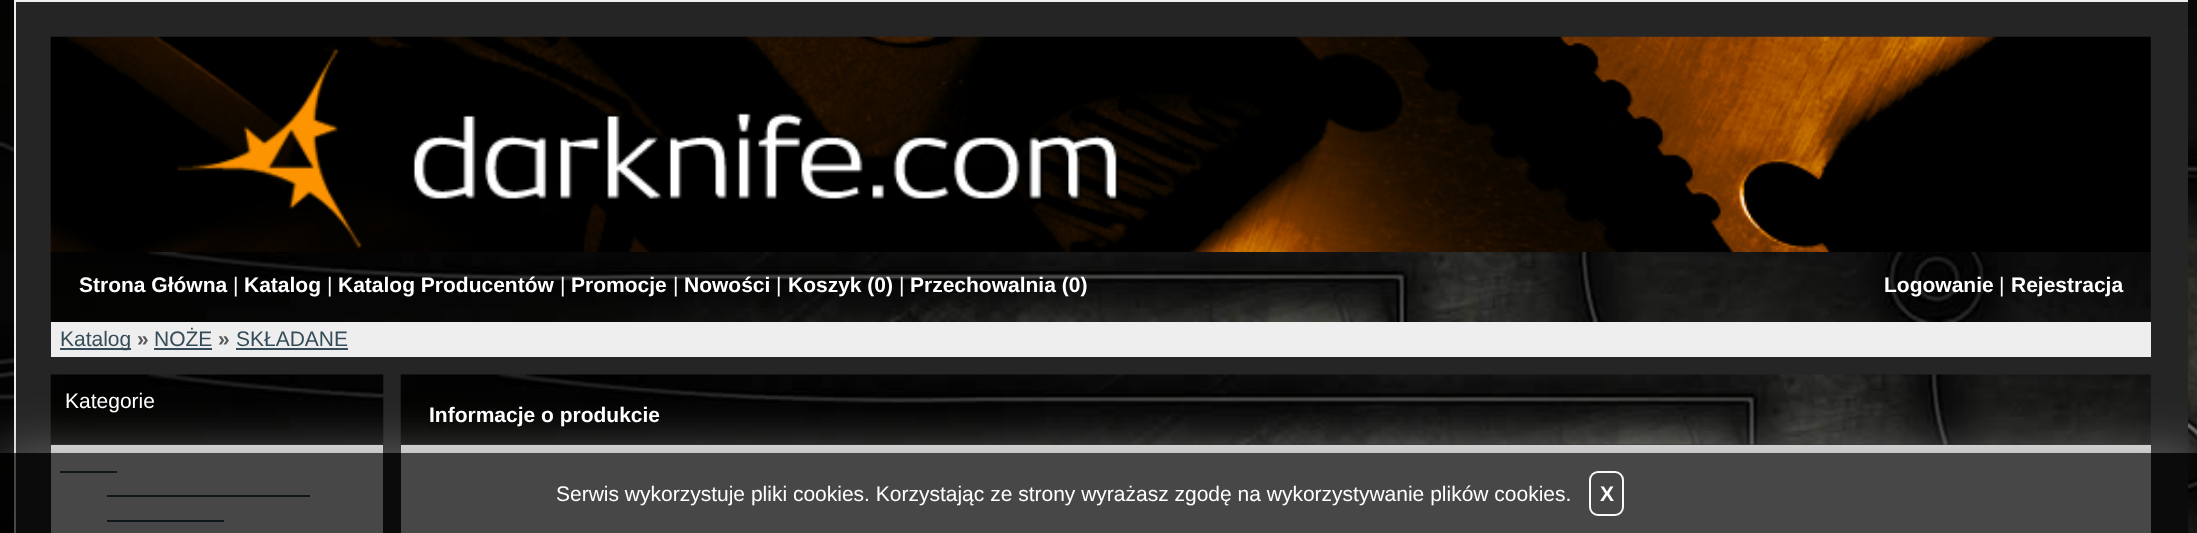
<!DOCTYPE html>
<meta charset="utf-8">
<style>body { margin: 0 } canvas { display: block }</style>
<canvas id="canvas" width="2197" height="533"></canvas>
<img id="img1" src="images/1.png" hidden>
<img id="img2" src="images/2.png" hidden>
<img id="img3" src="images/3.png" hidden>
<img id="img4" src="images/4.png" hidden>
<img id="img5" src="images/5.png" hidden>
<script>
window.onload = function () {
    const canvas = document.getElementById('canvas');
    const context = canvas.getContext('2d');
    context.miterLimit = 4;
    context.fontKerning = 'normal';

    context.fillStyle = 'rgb(255, 255, 255)';
    context.fillRect(0, 0, 2197, 533);
    context.drawImage(document.getElementById('img1'), 0, 0, 2197, 533);
    context.fillStyle = 'rgb(238, 238, 238)';
    context.fillRect(14, 0, 2174, 2);
    context.fillRect(14, 0, 2, 533);
    context.fillStyle = 'rgb(37, 37, 37)';
    context.fillRect(16, 2, 2172, 531);
    context.drawImage(document.getElementById('img2'), 50, 36, 2101, 216);
    context.drawImage(document.getElementById('img3'), 50, 252, 2101, 70);
    context.fillStyle = 'rgb(238, 238, 238)';
    context.fillRect(51, 322, 2100, 35);
    context.fillStyle = 'rgb(53, 77, 90)';
    context.fillRect(60, 348, 71, 2);
    context.fillRect(154, 348, 58, 2);
    context.fillRect(236, 348, 112, 2);
    context.drawImage(document.getElementById('img4'), 50, 374, 334, 71);
    context.fillStyle = 'rgb(238, 238, 238)';
    context.fillRect(51, 445, 332, 88);
    context.fillStyle = 'rgb(53, 77, 90)';
    context.fillRect(60, 471, 57, 2);
    context.fillRect(107, 495, 203, 2);
    context.fillRect(107, 520, 117, 2);
    context.drawImage(document.getElementById('img5'), 400, 374, 1751, 71);
    context.fillStyle = 'rgb(238, 238, 238)';
    context.fillRect(401, 445, 1750, 88);
    context.save();
    context.beginPath();
    context.moveTo(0, 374);
    context.lineTo(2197, 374);
    context.lineTo(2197, 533);
    context.lineTo(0, 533);
    context.closePath();
    context.moveTo(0, 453);
    context.lineTo(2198, 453);
    context.lineTo(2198, 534);
    context.lineTo(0, 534);
    context.closePath();
    context.clip('evenodd');
    context.fillStyle = 'rgba(128, 128, 128, 0.7)';
    context.filter = 'blur(26px)';
    context.beginPath();
    context.rect(0, 453, 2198, 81);
    context.fill();
    context.filter = 'none';
    context.restore();
    context.fillStyle = 'rgba(0, 0, 0, 0.7)';
    context.fillRect(0, 453, 2197, 80);
    context.beginPath();
    context.roundRect(1590, 472, 33, 43, 8);
    context.strokeStyle = 'rgb(250, 250, 250)';
    context.lineWidth = 2;
    context.stroke();
    context.font = 'bold 21px Liberation Sans';
    context.fillStyle = 'rgb(255, 255, 255)';
    context.fillText('Strona Główna', 79, 292);
    context.font = '21px Liberation Sans';
    context.fillText('|', 233, 292);
    context.font = 'bold 21px Liberation Sans';
    context.fillText('Katalog', 244, 292);
    context.font = '21px Liberation Sans';
    context.fillText('|', 327, 292);
    context.font = 'bold 21px Liberation Sans';
    context.fillText('Katalog Producentów', 338, 292);
    context.font = '21px Liberation Sans';
    context.fillText('|', 560, 292);
    context.font = 'bold 21px Liberation Sans';
    context.fillText('Promocje', 571, 292);
    context.font = '21px Liberation Sans';
    context.fillText('|', 673, 292);
    context.font = 'bold 21px Liberation Sans';
    context.fillText('Nowości', 684, 292);
    context.font = '21px Liberation Sans';
    context.fillText('|', 776, 292);
    context.font = 'bold 21px Liberation Sans';
    context.fillText('Koszyk (0)', 788, 292);
    context.font = '21px Liberation Sans';
    context.fillText('|', 899, 292);
    context.font = 'bold 21px Liberation Sans';
    context.fillText('Przechowalnia (0)', 910, 292);
    context.fillText('Logowanie', 1884, 292);
    context.font = '21px Liberation Sans';
    context.fillText('|', 1999, 292);
    context.font = 'bold 21px Liberation Sans';
    context.fillText('Rejestracja', 2011, 292);
    context.font = '21px Liberation Sans';
    context.fillStyle = 'rgb(53, 77, 90)';
    context.fillText('Katalog', 60, 346);
    context.font = 'bold 21px Liberation Sans';
    context.fillStyle = 'rgb(88, 88, 88)';
    context.fillText('»', 137, 346);
    context.font = '21px Liberation Sans';
    context.fillStyle = 'rgb(53, 77, 90)';
    context.fillText('NOŻE', 154, 346);
    context.font = 'bold 21px Liberation Sans';
    context.fillStyle = 'rgb(88, 88, 88)';
    context.fillText('»', 218, 346);
    context.font = '21px Liberation Sans';
    context.fillStyle = 'rgb(53, 77, 90)';
    context.fillText('SKŁADANE', 236, 346);
    context.fillStyle = 'rgb(255, 255, 255)';
    context.fillText('Kategorie', 65, 408);
    context.font = 'bold 21px Liberation Sans';
    context.fillText('Informacje o produkcie', 429, 422);
    context.font = '21px Liberation Sans';
    context.fillText('Serwis wykorzystuje pliki cookies. Korzystając ze strony wyrażasz zgodę na wykorzystywanie plików cookies.', 556, 501);
    context.font = 'bold 21px Liberation Sans';
    context.fillText('X', 1600, 501);
};
</script>
